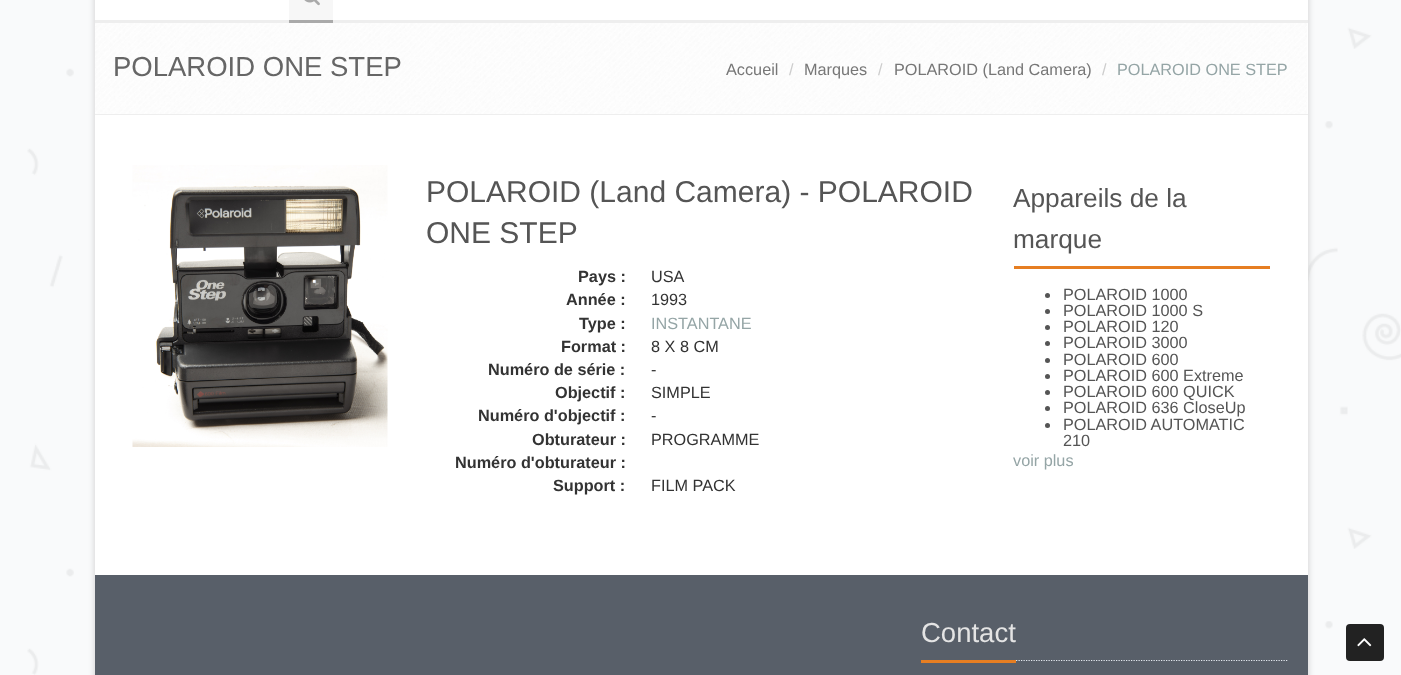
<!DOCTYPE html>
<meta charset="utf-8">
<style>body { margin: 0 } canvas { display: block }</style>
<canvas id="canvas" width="1401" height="675"></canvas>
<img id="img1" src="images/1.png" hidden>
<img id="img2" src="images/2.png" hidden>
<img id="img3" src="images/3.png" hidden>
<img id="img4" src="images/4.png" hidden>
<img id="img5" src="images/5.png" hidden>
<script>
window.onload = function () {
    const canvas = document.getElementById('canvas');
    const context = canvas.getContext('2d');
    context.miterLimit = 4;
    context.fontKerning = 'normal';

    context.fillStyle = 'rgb(255, 255, 255)';
    context.fillRect(0, 0, 1401, 675);
    context.drawImage(document.getElementById('img1'), 0, 0, 1401, 675);
    context.fillStyle = 'rgb(204, 204, 204)';
    context.filter = 'blur(3px)';
    context.beginPath();
    context.rect(95, -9, 1213, 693);
    context.fill();
    context.filter = 'none';
    context.fillStyle = 'rgb(255, 255, 255)';
    context.fillRect(95, 23, 1213, 552);
    context.fillRect(95, 0, 1213, 20);
    context.fillStyle = 'rgb(238, 238, 238)';
    context.fillRect(95, 20, 1213, 3);
    context.fillStyle = 'rgb(247, 247, 247)';
    context.fillRect(289, 0, 44, 20);
    context.fillStyle = 'rgb(170, 170, 170)';
    context.fillRect(289, 20, 44, 3);
    context.drawImage(document.getElementById('img2'), 304, 0, 16, 6);
    context.drawImage(document.getElementById('img3'), 95, 23, 1212, 91);
    context.fillStyle = 'rgb(238, 238, 238)';
    context.fillRect(95, 114, 1213, 1);
    context.drawImage(document.getElementById('img4'), 132, 165, 256, 282);
    context.fillStyle = 'rgb(230, 126, 34)';
    context.fillRect(1014, 266, 256, 3);
    context.fillStyle = 'rgb(85, 85, 85)';
    context.beginPath();
    context.arc(1047.5, 295.5, 2.5, 0, 2 * Math.PI);
    context.fill();
    context.beginPath();
    context.arc(1047.5, 311.5, 2.5, 0, 2 * Math.PI);
    context.fill();
    context.beginPath();
    context.arc(1047.5, 327.5, 2.5, 0, 2 * Math.PI);
    context.fill();
    context.beginPath();
    context.arc(1047.5, 343.5, 2.5, 0, 2 * Math.PI);
    context.fill();
    context.beginPath();
    context.arc(1047.5, 360.5, 2.5, 0, 2 * Math.PI);
    context.fill();
    context.beginPath();
    context.arc(1047.5, 376.5, 2.5, 0, 2 * Math.PI);
    context.fill();
    context.beginPath();
    context.arc(1047.5, 392.5, 2.5, 0, 2 * Math.PI);
    context.fill();
    context.beginPath();
    context.arc(1047.5, 408.5, 2.5, 0, 2 * Math.PI);
    context.fill();
    context.beginPath();
    context.arc(1047.5, 425.5, 2.5, 0, 2 * Math.PI);
    context.fill();
    context.fillStyle = 'rgb(88, 95, 105)';
    context.fillRect(95, 575, 1213, 100);
    context.beginPath();
    context.moveTo(921, 660.5);
    context.lineTo(1287.5, 660.5);
    context.strokeStyle = 'rgb(228, 233, 240)';
    context.lineWidth = 1.2;
    context.setLineDash([1.25, 1.25]);
    context.stroke();
    context.fillStyle = 'rgb(230, 126, 34)';
    context.fillRect(921, 660, 95, 3);
    context.fillStyle = 'rgb(34, 34, 34)';
    context.beginPath();
    context.roundRect(1346, 624, 38, 37, 4);
    context.fill();
    context.drawImage(document.getElementById('img5'), 1357, 638, 15, 9);
    context.font = '27.5px Liberation Sans';
    context.fillStyle = 'rgb(102, 102, 102)';
    context.fillText('POLAROID ONE STEP', 113, 76);
    context.font = '16.25px Liberation Sans';
    context.fillStyle = 'rgb(119, 119, 119)';
    context.fillText('Accueil', 726, 75);
    context.fillStyle = 'rgb(204, 204, 204)';
    context.fillText('/', 789, 75);
    context.fillStyle = 'rgb(119, 119, 119)';
    context.fillText('Marques', 804, 75);
    context.fillStyle = 'rgb(204, 204, 204)';
    context.fillText('/', 878, 75);
    context.fillStyle = 'rgb(119, 119, 119)';
    context.fillText('POLAROID (Land Camera)', 894, 75);
    context.fillStyle = 'rgb(204, 204, 204)';
    context.fillText('/', 1102, 75);
    context.fillStyle = 'rgb(149, 165, 166)';
    context.fillText('POLAROID ONE STEP', 1117, 75);
    context.font = '30px Liberation Sans';
    context.fillStyle = 'rgb(85, 85, 85)';
    context.fillText('POLAROID (Land Camera) - POLAROID', 426, 202);
    context.fillText('ONE STEP', 426, 243);
    context.font = 'bold 16.25px Liberation Sans';
    context.fillStyle = 'rgb(51, 51, 51)';
    context.fillText('Pays :', 578, 282);
    context.font = '16.25px Liberation Sans';
    context.fillText('USA', 651, 282);
    context.font = 'bold 16.25px Liberation Sans';
    context.fillText('Année :', 566, 305);
    context.font = '16.25px Liberation Sans';
    context.fillText('1993', 651, 305);
    context.font = 'bold 16.25px Liberation Sans';
    context.fillText('Type :', 579, 329);
    context.font = '16.25px Liberation Sans';
    context.fillStyle = 'rgb(149, 165, 166)';
    context.fillText('INSTANTANE', 651, 329);
    context.font = 'bold 16.25px Liberation Sans';
    context.fillStyle = 'rgb(51, 51, 51)';
    context.fillText('Format :', 561, 352);
    context.font = '16.25px Liberation Sans';
    context.fillText('8 X 8 CM', 651, 352);
    context.font = 'bold 16.25px Liberation Sans';
    context.fillText('Numéro de série :', 488, 375);
    context.font = '16.25px Liberation Sans';
    context.fillText('-', 651, 375);
    context.font = 'bold 16.25px Liberation Sans';
    context.fillText('Objectif :', 555, 398);
    context.font = '16.25px Liberation Sans';
    context.fillText('SIMPLE', 651, 398);
    context.font = 'bold 16.25px Liberation Sans';
    context.fillText('Numéro d\'objectif :', 478, 421);
    context.font = '16.25px Liberation Sans';
    context.fillText('-', 651, 421);
    context.font = 'bold 16.25px Liberation Sans';
    context.fillText('Obturateur :', 532, 445);
    context.font = '16.25px Liberation Sans';
    context.fillText('PROGRAMME', 651, 445);
    context.font = 'bold 16.25px Liberation Sans';
    context.fillText('Numéro d\'obturateur :', 455, 468);
    context.fillText('Support :', 553, 491);
    context.font = '16.25px Liberation Sans';
    context.fillText('FILM PACK', 651, 491);
    context.font = '26.25px Liberation Sans';
    context.fillStyle = 'rgb(85, 85, 85)';
    context.fillText('Appareils de la', 1013, 207);
    context.fillText('marque', 1013, 248);
    context.font = '16.25px Liberation Sans';
    context.fillText('POLAROID 1000', 1063, 300);
    context.fillText('POLAROID 1000 S', 1063, 316);
    context.fillText('POLAROID 120', 1063, 332);
    context.fillText('POLAROID 3000', 1063, 348);
    context.fillText('POLAROID 600', 1063, 365);
    context.fillText('POLAROID 600 Extreme', 1063, 381);
    context.fillText('POLAROID 600 QUICK', 1063, 397);
    context.fillText('POLAROID 636 CloseUp', 1063, 413);
    context.fillText('POLAROID AUTOMATIC', 1063, 430);
    context.fillText('210', 1063, 446);
    context.fillStyle = 'rgb(149, 165, 166)';
    context.fillText('voir plus', 1013, 466);
    context.font = '27.5px Liberation Sans';
    context.fillStyle = 'rgb(228, 228, 228)';
    context.fillText('Contact', 921, 642);
};
</script>
